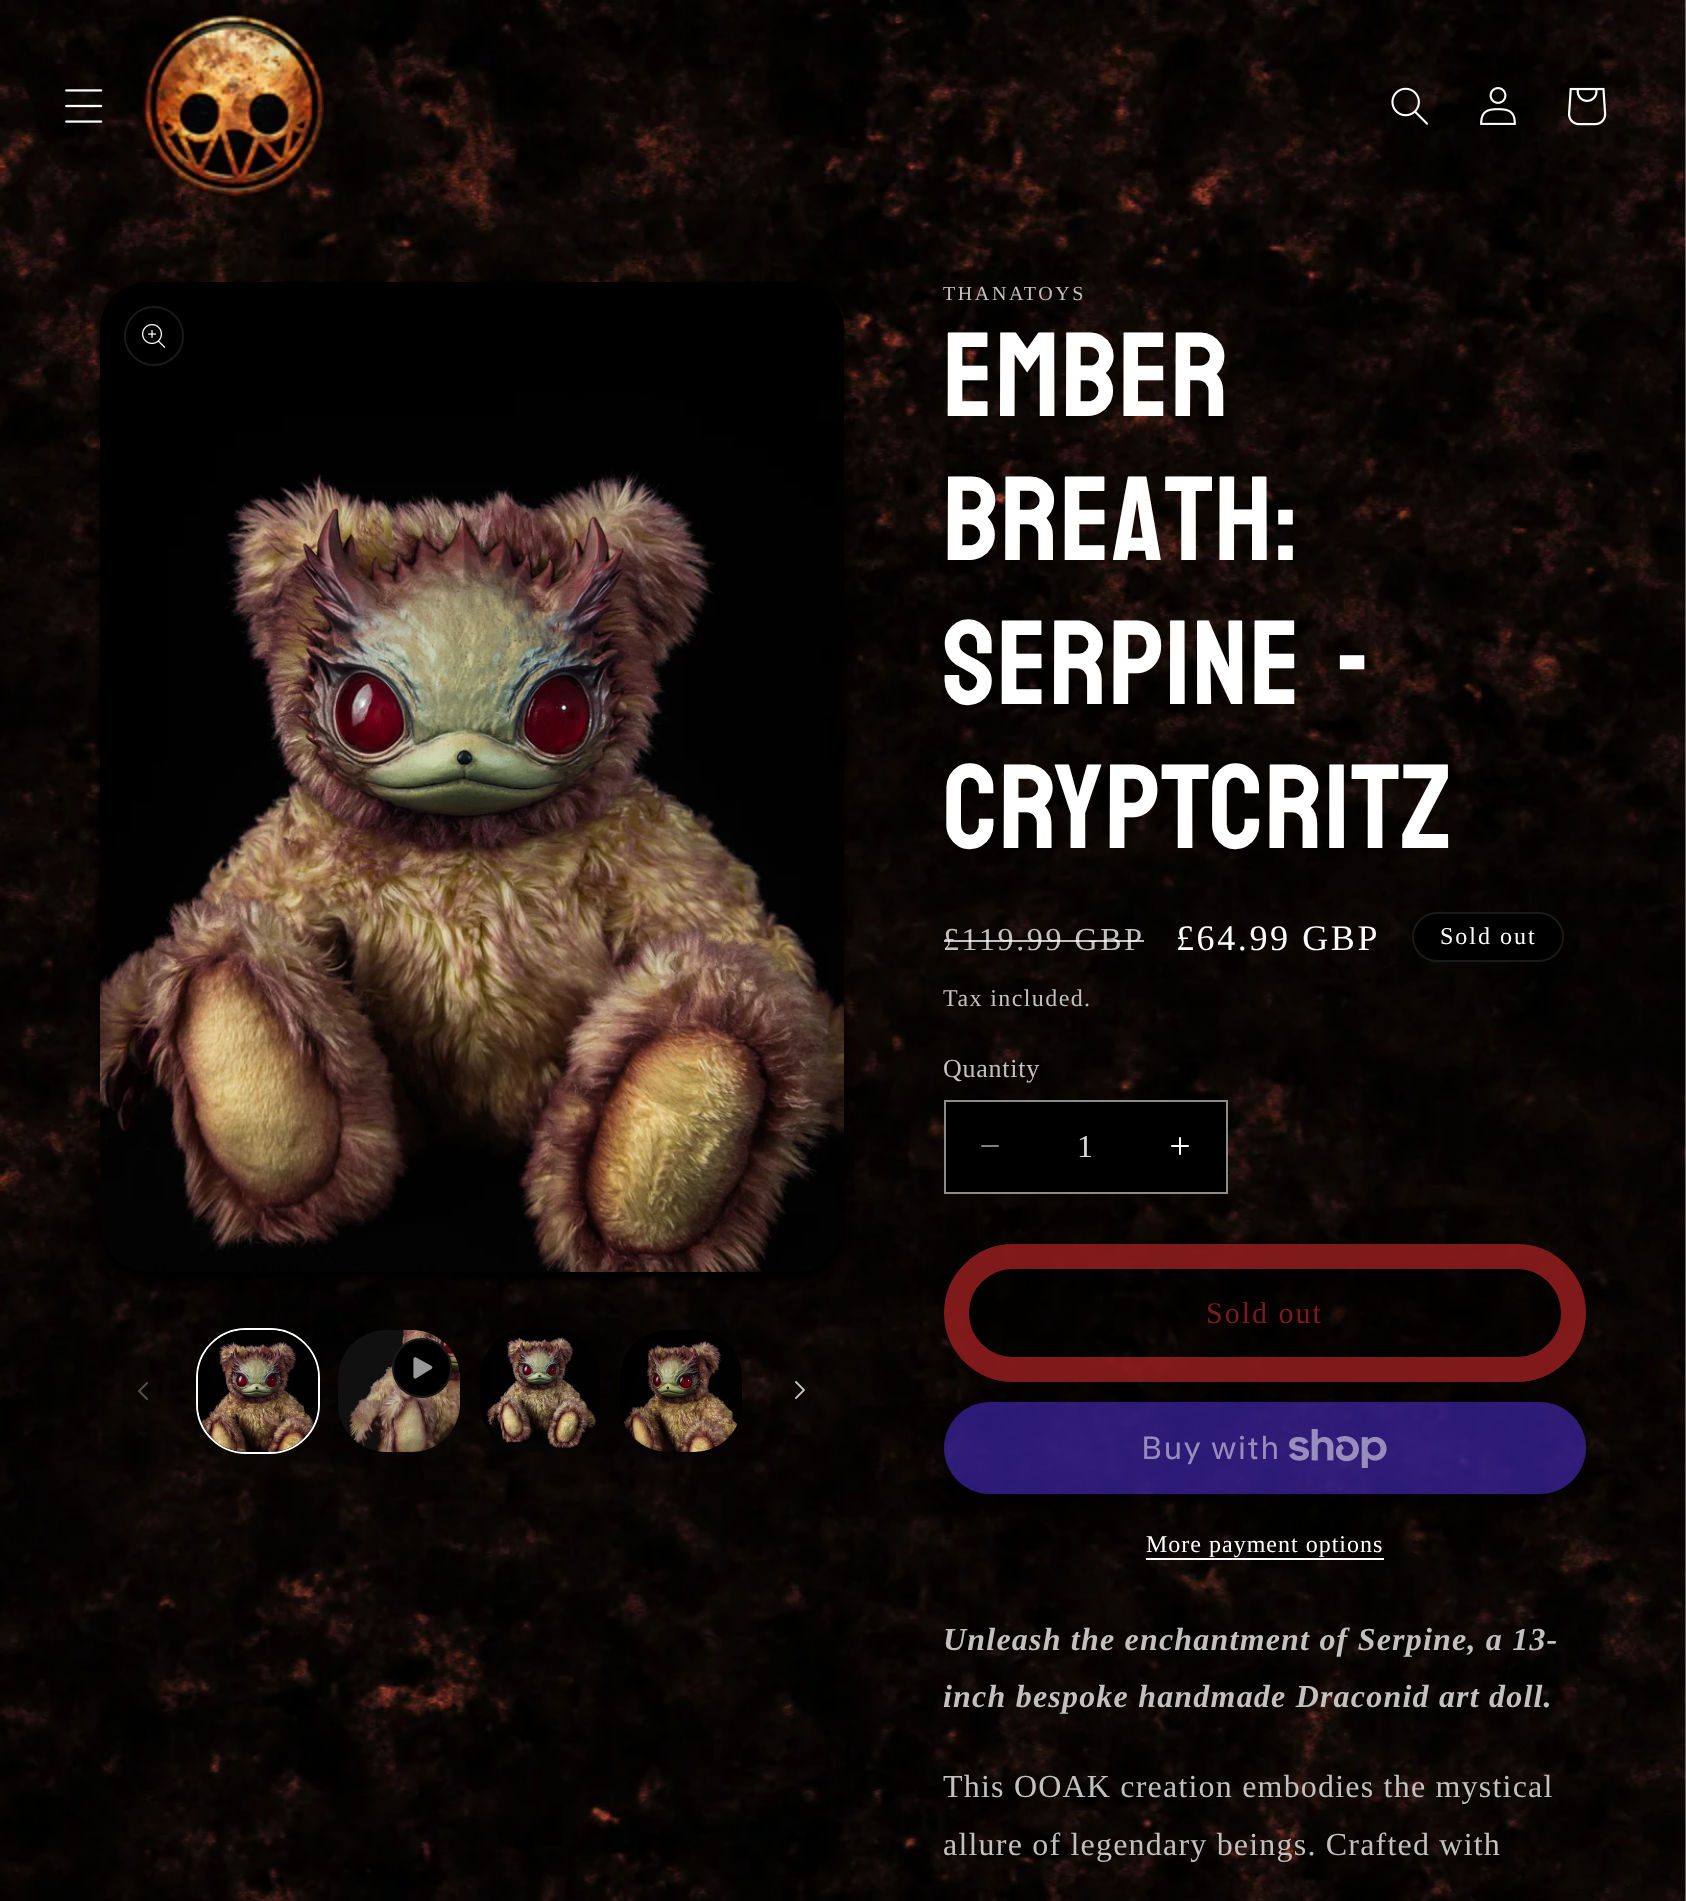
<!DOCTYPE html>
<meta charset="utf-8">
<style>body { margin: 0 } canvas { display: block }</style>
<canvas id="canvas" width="1686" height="1901"></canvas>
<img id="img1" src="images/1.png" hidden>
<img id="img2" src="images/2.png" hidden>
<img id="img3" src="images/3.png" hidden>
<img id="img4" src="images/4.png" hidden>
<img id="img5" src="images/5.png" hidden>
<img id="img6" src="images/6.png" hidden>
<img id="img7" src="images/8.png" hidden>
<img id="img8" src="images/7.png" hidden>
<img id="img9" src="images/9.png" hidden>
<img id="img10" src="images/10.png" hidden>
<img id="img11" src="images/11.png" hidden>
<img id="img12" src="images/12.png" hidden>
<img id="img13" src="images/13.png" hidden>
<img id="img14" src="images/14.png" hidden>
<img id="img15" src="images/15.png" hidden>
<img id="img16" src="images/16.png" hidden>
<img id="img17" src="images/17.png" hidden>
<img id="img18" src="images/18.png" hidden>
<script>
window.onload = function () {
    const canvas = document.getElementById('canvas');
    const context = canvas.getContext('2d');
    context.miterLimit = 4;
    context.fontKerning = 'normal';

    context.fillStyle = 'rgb(255, 255, 255)';
    context.fillRect(0, 0, 1686, 1901);
    context.drawImage(document.getElementById('img1'), 0, 0, 1686, 1901);
    context.drawImage(document.getElementById('img2'), 65, 89, 38, 34);
    context.drawImage(document.getElementById('img3'), 143, 15, 181, 181);
    context.drawImage(document.getElementById('img4'), 1391, 87, 37, 38);
    context.drawImage(document.getElementById('img5'), 1480, 87, 36, 38);
    context.drawImage(document.getElementById('img6'), 1568, 87, 39, 39);
    context.fillStyle = 'rgb(0, 0, 0)';
    context.filter = 'blur(5px)';
    context.beginPath();
    context.roundRect(100, 290, 744, 990, 48);
    context.fill();
    context.filter = 'none';
    context.beginPath();
    context.roundRect(100, 282, 744, 990, 48);
    context.fill();
    context.drawImage(document.getElementById('img7'), 100, 318, 744, 954);
    context.beginPath();
    context.arc(154, 336, 29, 0, 2 * Math.PI);
    context.strokeStyle = 'rgb(26, 26, 26)';
    context.lineWidth = 2;
    context.stroke();
    context.drawImage(document.getElementById('img8'), 142, 324, 24, 24);
    context.drawImage(document.getElementById('img9'), 138, 1382, 10, 18);
    context.beginPath();
    context.roundRect(197, 1329, 122, 124, 49);
    context.strokeStyle = 'rgb(255, 255, 255)';
    context.stroke();
    context.drawImage(document.getElementById('img10'), 198, 1330, 120, 122);
    context.drawImage(document.getElementById('img11'), 338, 1330, 122, 122);
    context.beginPath();
    context.arc(422, 1368, 30, 0, 2 * Math.PI);
    context.fill();
    context.beginPath();
    context.arc(422, 1368, 29, 0, 2 * Math.PI);
    context.strokeStyle = 'rgba(255, 255, 255, 0.1)';
    context.stroke();
    context.drawImage(document.getElementById('img12'), 413, 1357, 20, 22);
    context.drawImage(document.getElementById('img13'), 480, 1330, 120, 122);
    context.drawImage(document.getElementById('img14'), 620, 1330, 122, 122);
    context.drawImage(document.getElementById('img15'), 795, 1381, 10, 18);
    context.beginPath();
    context.roundRect(1412, 912, 152, 50, 25);
    context.fill();
    context.beginPath();
    context.roundRect(1413, 913, 150, 48, 24);
    context.stroke();
    context.fillRect(946, 1102, 280, 90);
    context.drawImage(document.getElementById('img16'), 981, 1145, 18, 2);
    context.drawImage(document.getElementById('img17'), 1171, 1137, 18, 18);
    context.save();
    context.beginPath();
    context.moveTo(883, 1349);
    context.lineTo(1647, 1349);
    context.lineTo(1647, 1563);
    context.lineTo(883, 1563);
    context.closePath();
    context.moveTo(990, 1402);
    context.lineTo(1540, 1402);
    context.bezierCurveTo(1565.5, 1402, 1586, 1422.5, 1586, 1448);
    context.bezierCurveTo(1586, 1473.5, 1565.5, 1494, 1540, 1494);
    context.lineTo(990, 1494);
    context.bezierCurveTo(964.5, 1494, 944, 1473.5, 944, 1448);
    context.bezierCurveTo(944, 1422.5, 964.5, 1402, 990, 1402);
    context.closePath();
    context.clip('evenodd');
    context.filter = 'blur(20px)';
    context.beginPath();
    context.roundRect(944, 1410, 642, 92, 46);
    context.fill();
    context.filter = 'none';
    context.restore();
    context.fillStyle = 'rgba(0, 0, 0, 0.5)';
    context.beginPath();
    context.roundRect(944, 1244, 642, 138, 69);
    context.fill();
    context.save();
    context.beginPath();
    context.moveTo(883, 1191);
    context.lineTo(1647, 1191);
    context.lineTo(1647, 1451);
    context.lineTo(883, 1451);
    context.closePath();
    context.moveTo(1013, 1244);
    context.lineTo(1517, 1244);
    context.bezierCurveTo(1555, 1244, 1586, 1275, 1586, 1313);
    context.bezierCurveTo(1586, 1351, 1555, 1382, 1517, 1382);
    context.lineTo(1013, 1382);
    context.bezierCurveTo(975, 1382, 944, 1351, 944, 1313);
    context.bezierCurveTo(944, 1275, 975, 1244, 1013, 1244);
    context.closePath();
    context.clip('evenodd');
    context.filter = 'blur(20px)';
    context.beginPath();
    context.roundRect(944, 1252, 642, 138, 69);
    context.fill();
    context.filter = 'none';
    context.restore();
    context.strokeStyle = 'rgb(140, 140, 140)';
    context.strokeRect(945, 1101, 282, 92);
    context.beginPath();
    context.roundRect(956, 1256, 618, 114, 57);
    context.strokeStyle = 'rgba(0, 0, 0, 0.5)';
    context.lineWidth = 24;
    context.stroke();
    context.beginPath();
    context.roundRect(956.5, 1256.5, 617, 113, 56.5);
    context.strokeStyle = 'rgba(253, 52, 52, 0.5)';
    context.lineWidth = 25;
    context.stroke();
    context.fillStyle = 'rgba(84, 51, 235, 0.5)';
    context.beginPath();
    context.roundRect(944, 1402, 642, 92, 46);
    context.fill();
    context.drawImage(document.getElementById('img18'), 1289, 1429, 98, 39);
    context.fillStyle = 'rgb(255, 255, 255)';
    context.fillRect(1146, 1558, 238, 2);
    context.letterSpacing = '2.6px';
    context.font = '20px Liberation Serif';
    context.fillStyle = 'rgb(194, 193, 192)';
    context.fillText('THANATOYS', 943, 300);
    context.letterSpacing = '1.75px';
    context.font = '120px Bayon';
    context.fillStyle = 'rgb(255, 255, 255)';
    context.fillText('Ember', 943, 416);
    context.fillText('Breath:', 943, 560);
    context.fillText('SERPINE -', 943, 704);
    context.fillText('CRYPTCRITZ', 943, 848);
    context.letterSpacing = '2.6px';
    context.font = '32px Liberation Serif';
    context.fillStyle = 'rgb(194, 193, 192)';
    context.fillText('£119.99 GBP', 943, 950);
    context.fillStyle = 'rgba(255, 255, 255, 0.75)';
    context.fillRect(944, 940, 200, 2);
    context.font = '36px Liberation Serif';
    context.fillStyle = 'rgb(255, 255, 255)';
    context.fillText('£64.99 GBP', 1176, 950);
    context.letterSpacing = '2px';
    context.font = '24px Liberation Serif';
    context.fillText('Sold out', 1440, 944);
    context.letterSpacing = '1.4px';
    context.fillStyle = 'rgb(194, 193, 192)';
    context.fillText('Tax included.', 943, 1006);
    context.letterSpacing = '0.75px';
    context.font = '26px Liberation Serif';
    context.fillText('Quantity', 943, 1077);
    context.letterSpacing = '0px';
    context.font = '32px Liberation Serif';
    context.fillStyle = 'rgb(217, 217, 217)';
    context.fillText('1', 1077, 1157);
    context.letterSpacing = '2px';
    context.font = '30px Liberation Serif';
    context.fillStyle = 'rgb(129, 27, 27)';
    context.fillText('Sold out', 1206, 1323);
    context.letterSpacing = '1.2px';
    context.font = '32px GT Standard';
    context.fillStyle = 'rgb(150, 141, 187)';
    context.fillText('Buy with', 1141, 1459);
    context.letterSpacing = '1px';
    context.font = '24px Liberation Serif';
    context.fillStyle = 'rgb(255, 255, 255)';
    context.fillText('More payment options', 1146, 1552);
    context.letterSpacing = '1.2px';
    context.font = 'italic bold 32px Liberation Serif';
    context.fillStyle = 'rgb(194, 193, 192)';
    context.fillText('Unleash the enchantment of Serpine, a 13-', 943, 1650);
    context.fillText('inch bespoke handmade Draconid art doll.', 943, 1707);
    context.font = '32px Liberation Serif';
    context.fillText('This OOAK creation embodies the mystical', 943, 1797);
    context.fillText('allure of legendary beings. Crafted with', 943, 1855);
};
</script>
